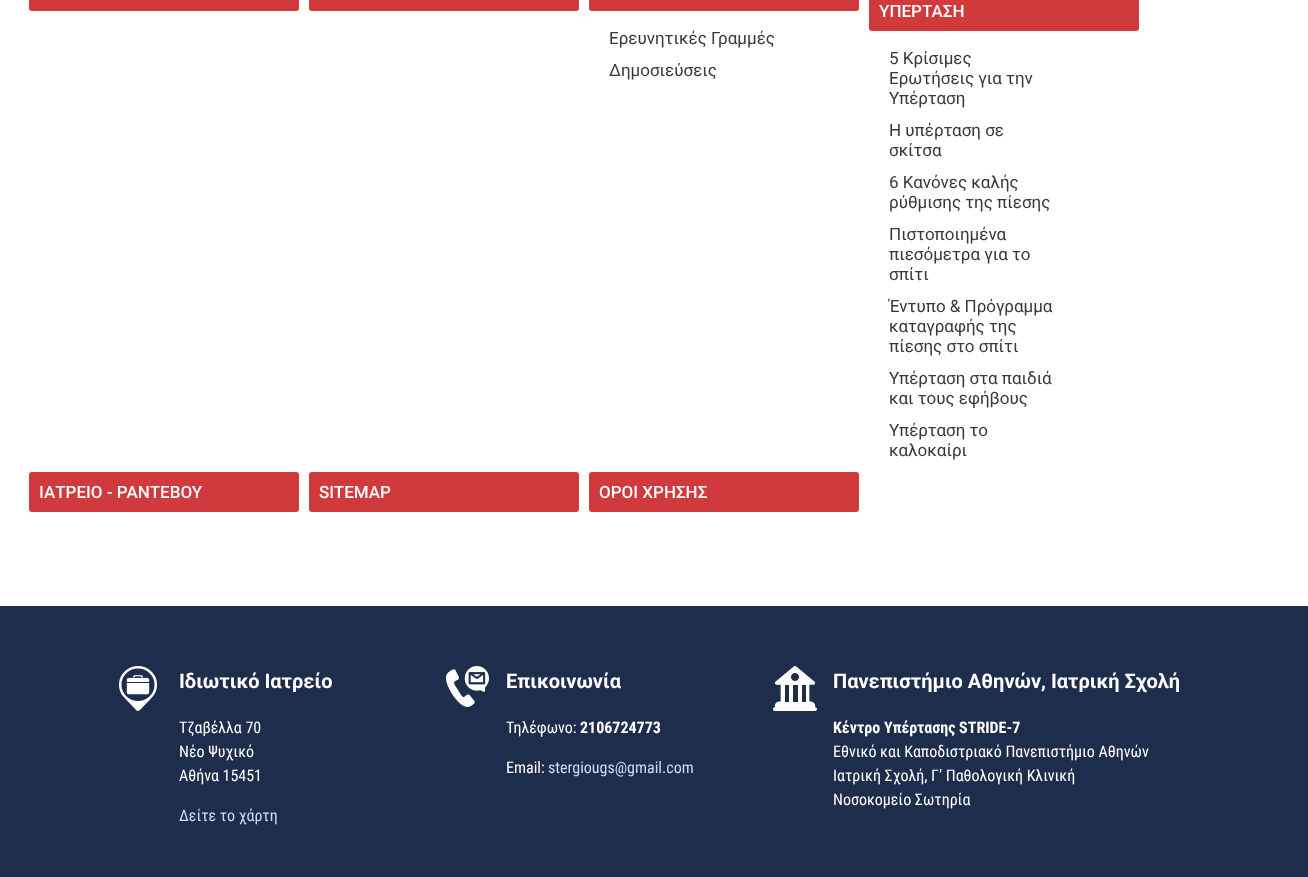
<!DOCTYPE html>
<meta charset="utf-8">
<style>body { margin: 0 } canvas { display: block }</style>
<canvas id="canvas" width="1308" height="877"></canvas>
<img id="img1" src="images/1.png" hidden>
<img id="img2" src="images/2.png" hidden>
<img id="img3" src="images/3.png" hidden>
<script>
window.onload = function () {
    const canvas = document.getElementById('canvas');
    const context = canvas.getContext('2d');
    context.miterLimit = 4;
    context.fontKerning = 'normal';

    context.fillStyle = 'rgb(255, 255, 255)';
    context.fillRect(0, 0, 1308, 877);
    context.fillStyle = 'rgb(209, 58, 60)';
    context.beginPath();
    context.roundRect(29, -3, 270, 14, 3);
    context.fill();
    context.beginPath();
    context.roundRect(309, -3, 270, 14, 3);
    context.fill();
    context.beginPath();
    context.roundRect(589, -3, 270, 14, 3);
    context.fill();
    context.beginPath();
    context.roundRect(869, -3, 270, 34, 3);
    context.fill();
    context.beginPath();
    context.roundRect(29, 472, 270, 40, 3);
    context.fill();
    context.beginPath();
    context.roundRect(309, 472, 270, 40, 3);
    context.fill();
    context.beginPath();
    context.roundRect(589, 472, 270, 40, 3);
    context.fill();
    context.fillStyle = 'rgb(31, 45, 77)';
    context.fillRect(0, 606, 1308, 271);
    context.drawImage(document.getElementById('img1'), 119, 666, 38, 45);
    context.drawImage(document.getElementById('img2'), 446, 666, 43, 41);
    context.drawImage(document.getElementById('img3'), 773, 666, 44, 45);
    context.font = '17px Roboto';
    context.fillStyle = 'rgb(56, 56, 56)';
    context.fillText('Ερευνητικές Γραμμές', 609, 44);
    context.fillText('Δημοσιεύσεις', 609, 76);
    context.font = '500 17px Roboto';
    context.fillStyle = 'rgb(255, 255, 255)';
    context.fillText('ΥΠΕΡΤΑΣΗ', 879, 17);
    context.font = '17px Roboto';
    context.fillStyle = 'rgb(56, 56, 56)';
    context.fillText('5 Κρίσιμες', 889, 64);
    context.fillText('Ερωτήσεις για την', 889, 84);
    context.fillText('Υπέρταση', 889, 104);
    context.fillText('Η υπέρταση σε', 889, 136);
    context.fillText('σκίτσα', 889, 156);
    context.fillText('6 Κανόνες καλής', 889, 188);
    context.fillText('ρύθμισης της πίεσης', 889, 208);
    context.fillText('Πιστοποιημένα', 889, 240);
    context.fillText('πιεσόμετρα για το', 889, 260);
    context.fillText('σπίτι', 889, 280);
    context.fillText('Έντυπο & Πρόγραμμα', 889, 312);
    context.fillText('καταγραφής της', 889, 332);
    context.fillText('πίεσης στο σπίτι', 889, 352);
    context.fillText('Υπέρταση στα παιδιά', 889, 384);
    context.fillText('και τους εφήβους', 889, 404);
    context.fillText('Υπέρταση το', 889, 436);
    context.fillText('καλοκαίρι', 889, 456);
    context.font = '500 17px Roboto';
    context.fillStyle = 'rgb(255, 255, 255)';
    context.fillText('ΙΑΤΡΕΙΟ - ΡΑΝΤΕΒΟΥ', 39, 498);
    context.fillText('SITEMAP', 319, 498);
    context.fillText('ΟΡΟΙ ΧΡΗΣΗΣ', 599, 498);
    context.font = 'bold 20px Roboto';
    context.fillText('Ιδιωτικό Ιατρείο', 179, 688);
    context.font = '16px Roboto Condensed';
    context.fillText('Τζαβέλλα 70', 179, 733);
    context.fillText('Νέο Ψυχικό', 179, 757);
    context.fillText('Αθήνα 15451', 179, 781);
    context.fillStyle = 'rgb(206, 219, 249)';
    context.fillText('Δείτε το χάρτη', 179, 821);
    context.font = 'bold 20px Roboto';
    context.fillStyle = 'rgb(255, 255, 255)';
    context.fillText('Επικοινωνία', 506, 688);
    context.font = '16px Roboto Condensed';
    context.fillText('Τηλέφωνο:', 506, 733);
    context.font = 'bold 16px Roboto Condensed';
    context.fillText('2106724773', 580, 733);
    context.font = '16px Roboto Condensed';
    context.fillText('Email:', 506, 773);
    context.fillStyle = 'rgb(206, 219, 249)';
    context.fillText('stergiougs@gmail.com', 548, 773);
    context.font = 'bold 20px Roboto';
    context.fillStyle = 'rgb(255, 255, 255)';
    context.fillText('Πανεπιστήμιο Αθηνών, Ιατρική Σχολή', 833, 688);
    context.font = 'bold 16px Roboto Condensed';
    context.fillText('Κέντρο Υπέρτασης STRIDE-7', 833, 733);
    context.font = '16px Roboto Condensed';
    context.fillText('Εθνικό και Καποδιστριακό Πανεπιστήμιο Αθηνών', 833, 757);
    context.fillText('Ιατρική Σχολή, Γ’ Παθολογική Κλινική', 833, 781);
    context.fillText('Νοσοκομείο Σωτηρία', 833, 805);
};
</script>
